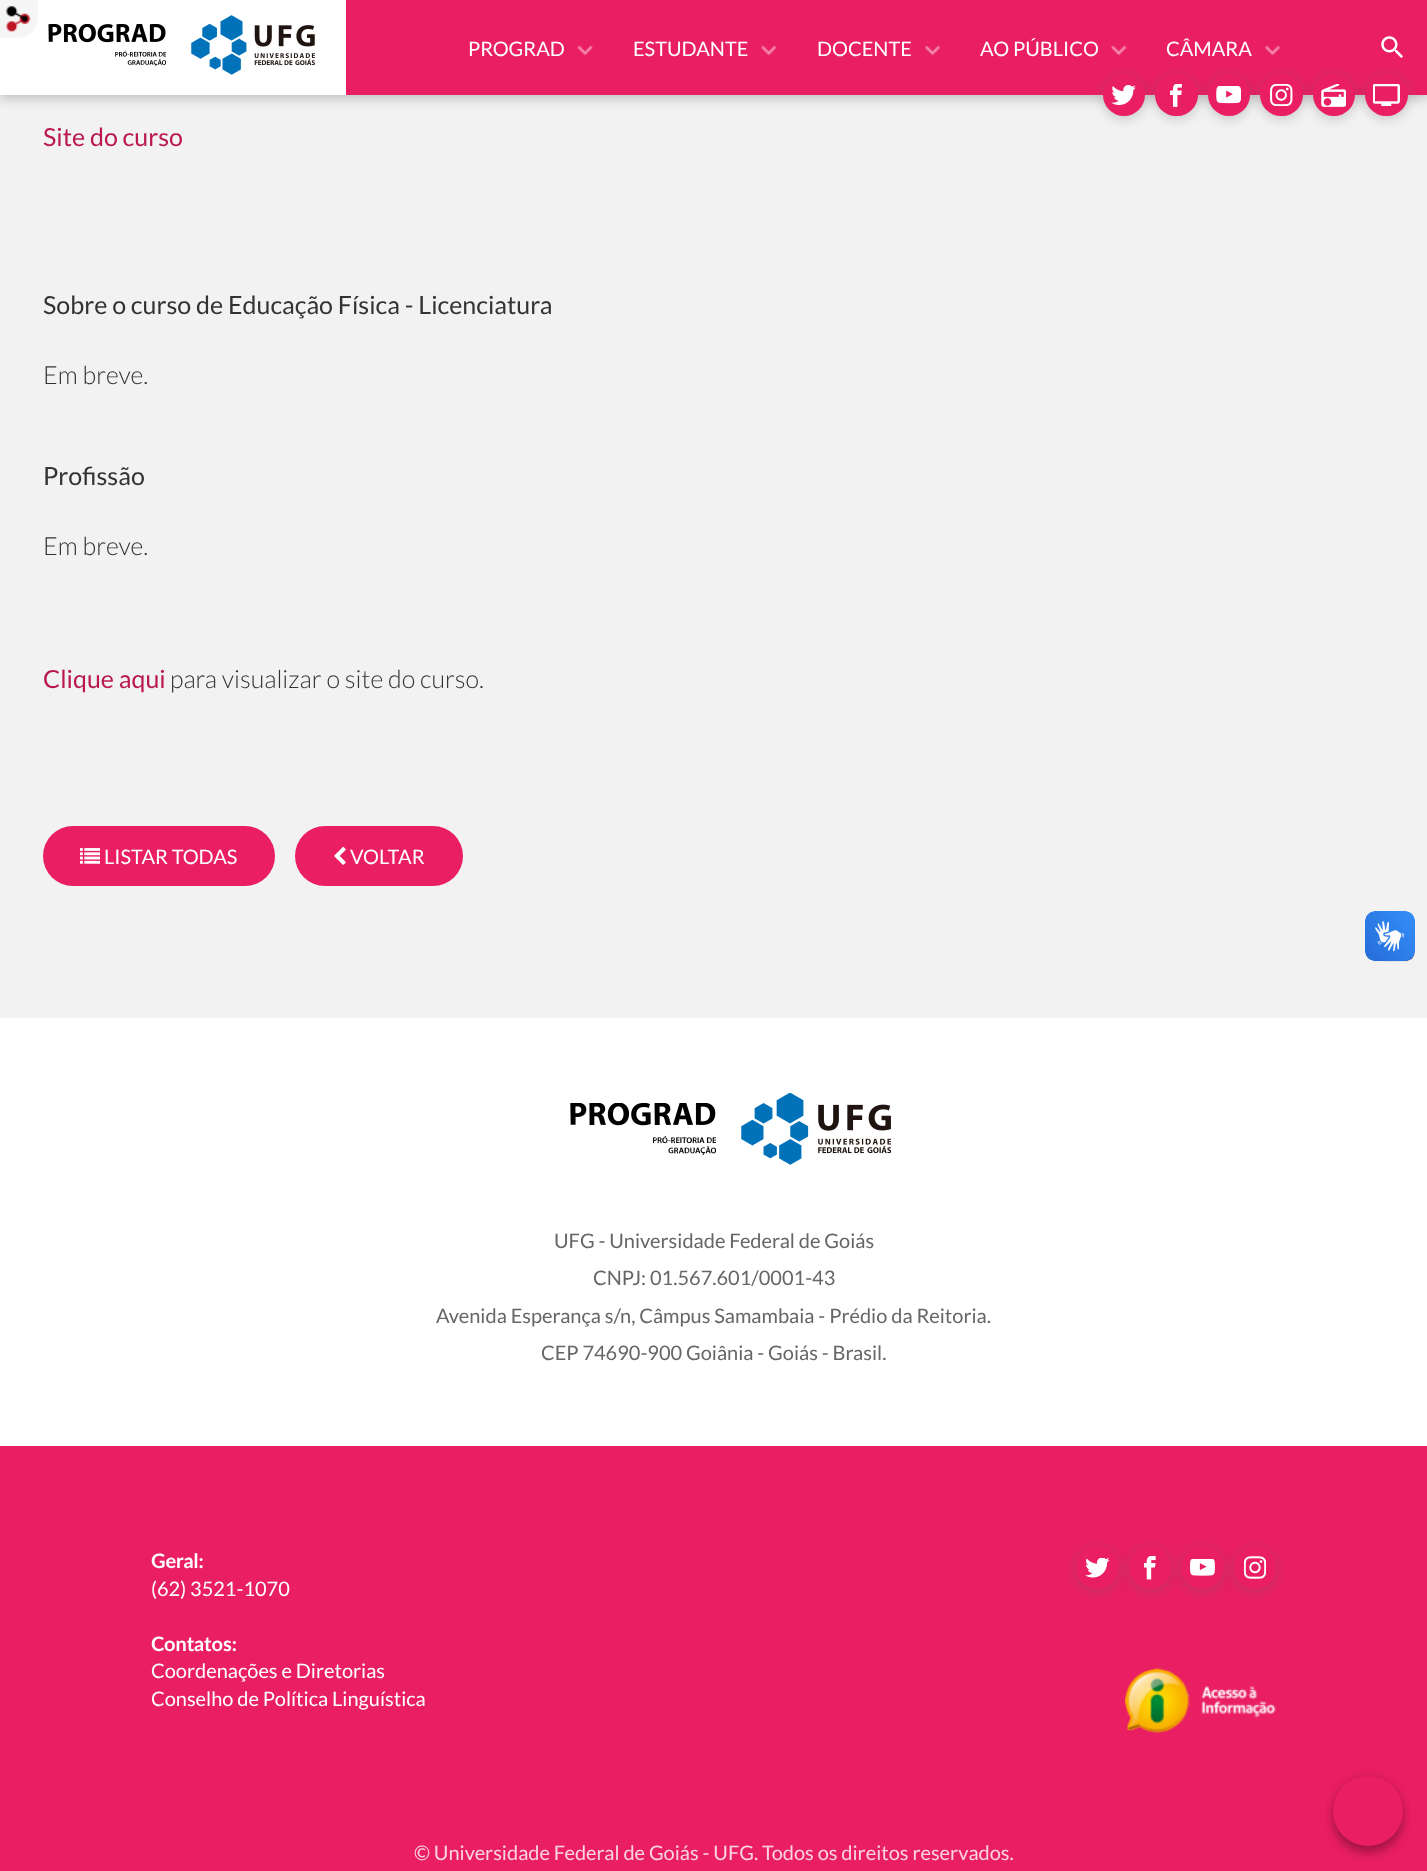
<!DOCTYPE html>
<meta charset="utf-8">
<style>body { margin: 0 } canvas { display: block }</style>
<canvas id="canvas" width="1427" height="1871"></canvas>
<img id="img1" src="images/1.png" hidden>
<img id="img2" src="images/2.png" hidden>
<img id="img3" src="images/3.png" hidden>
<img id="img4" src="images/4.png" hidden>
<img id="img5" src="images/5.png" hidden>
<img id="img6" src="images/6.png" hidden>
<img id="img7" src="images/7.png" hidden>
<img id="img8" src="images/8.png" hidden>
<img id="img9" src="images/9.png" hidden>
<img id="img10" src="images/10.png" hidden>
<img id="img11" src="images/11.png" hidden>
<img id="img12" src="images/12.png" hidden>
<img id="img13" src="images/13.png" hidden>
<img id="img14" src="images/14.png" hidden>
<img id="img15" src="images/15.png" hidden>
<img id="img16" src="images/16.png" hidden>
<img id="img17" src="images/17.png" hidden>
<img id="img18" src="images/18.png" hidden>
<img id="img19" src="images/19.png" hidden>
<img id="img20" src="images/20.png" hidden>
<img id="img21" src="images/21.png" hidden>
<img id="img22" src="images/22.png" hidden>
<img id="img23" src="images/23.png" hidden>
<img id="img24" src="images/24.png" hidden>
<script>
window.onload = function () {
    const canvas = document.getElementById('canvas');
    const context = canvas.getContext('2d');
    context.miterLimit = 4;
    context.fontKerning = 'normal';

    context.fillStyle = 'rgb(242, 242, 242)';
    context.fillRect(0, 0, 1427, 1871);
    context.fillStyle = 'rgba(0, 0, 0, 0.2)';
    context.filter = 'blur(6px)';
    context.beginPath();
    context.rect(0, 4, 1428, 95);
    context.fill();
    context.filter = 'none';
    context.fillStyle = 'rgb(255, 255, 255)';
    context.fillRect(0, 0, 346, 95);
    context.drawImage(document.getElementById('img1'), 0, 0, 38, 38);
    context.drawImage(document.getElementById('img2'), 48, 24, 118, 42);
    context.drawImage(document.getElementById('img3'), 191, 15, 124, 60);
    context.fillStyle = 'rgb(233, 30, 99)';
    context.fillRect(346, 0, 1081, 95);
    context.drawImage(document.getElementById('img4'), 577, 45, 16, 11);
    context.drawImage(document.getElementById('img5'), 761, 45, 16, 11);
    context.drawImage(document.getElementById('img6'), 925, 45, 16, 11);
    context.drawImage(document.getElementById('img5'), 1111, 45, 16, 11);
    context.drawImage(document.getElementById('img6'), 1265, 45, 16, 11);
    context.fillStyle = 'rgba(102, 102, 102, 0.3)';
    context.filter = 'blur(6px)';
    context.beginPath();
    context.roundRect(1103, 76, 42, 43, 21);
    context.fill();
    context.filter = 'none';
    context.fillStyle = 'rgb(233, 30, 99)';
    context.beginPath();
    context.arc(1124, 95, 21, 0, 2 * Math.PI);
    context.fill();
    context.fillStyle = 'rgba(102, 102, 102, 0.3)';
    context.filter = 'blur(6px)';
    context.beginPath();
    context.roundRect(1155, 76, 43, 43, 21.5);
    context.fill();
    context.filter = 'none';
    context.fillStyle = 'rgb(233, 30, 99)';
    context.beginPath();
    context.roundRect(1155, 74, 43, 42, 21);
    context.fill();
    context.fillStyle = 'rgba(102, 102, 102, 0.3)';
    context.filter = 'blur(6px)';
    context.beginPath();
    context.roundRect(1208, 76, 42, 43, 21);
    context.fill();
    context.filter = 'none';
    context.fillStyle = 'rgb(233, 30, 99)';
    context.beginPath();
    context.arc(1229, 95, 21, 0, 2 * Math.PI);
    context.fill();
    context.fillStyle = 'rgba(102, 102, 102, 0.3)';
    context.filter = 'blur(6px)';
    context.beginPath();
    context.roundRect(1260, 76, 43, 43, 21.5);
    context.fill();
    context.filter = 'none';
    context.fillStyle = 'rgb(233, 30, 99)';
    context.beginPath();
    context.roundRect(1260, 74, 43, 42, 21);
    context.fill();
    context.fillStyle = 'rgba(102, 102, 102, 0.3)';
    context.filter = 'blur(6px)';
    context.beginPath();
    context.roundRect(1313, 76, 42, 43, 21);
    context.fill();
    context.filter = 'none';
    context.fillStyle = 'rgb(233, 30, 99)';
    context.beginPath();
    context.arc(1334, 95, 21, 0, 2 * Math.PI);
    context.fill();
    context.fillStyle = 'rgba(102, 102, 102, 0.3)';
    context.filter = 'blur(6px)';
    context.beginPath();
    context.roundRect(1365, 76, 43, 43, 21.5);
    context.fill();
    context.filter = 'none';
    context.drawImage(document.getElementById('img7'), 1381, 36, 22, 22);
    context.drawImage(document.getElementById('img8'), 1111, 85, 25, 20);
    context.drawImage(document.getElementById('img9'), 1170, 84, 12, 23);
    context.drawImage(document.getElementById('img10'), 1216, 86, 25, 18);
    context.drawImage(document.getElementById('img11'), 1270, 84, 23, 22);
    context.drawImage(document.getElementById('img12'), 1321, 84, 25, 23);
    context.fillStyle = 'rgb(233, 30, 99)';
    context.beginPath();
    context.roundRect(1365, 74, 43, 42, 21);
    context.fill();
    context.drawImage(document.getElementById('img13'), 1373, 84, 27, 22);
    context.beginPath();
    context.roundRect(43, 826, 232, 60, 30);
    context.fill();
    context.drawImage(document.getElementById('img14'), 80, 848, 20, 16);
    context.beginPath();
    context.roundRect(295, 826, 168, 60, 30);
    context.fill();
    context.drawImage(document.getElementById('img15'), 334, 846, 12, 19);
    context.drawImage(document.getElementById('img16'), 1365, 911, 50, 51);
    context.drawImage(document.getElementById('img17'), 1365, 911, 50, 50);
    context.fillStyle = 'rgb(255, 255, 255)';
    context.fillRect(0, 1018, 1427, 428);
    context.drawImage(document.getElementById('img18'), 570, 1103, 146, 52);
    context.drawImage(document.getElementById('img19'), 741, 1093, 150, 72);
    context.fillStyle = 'rgb(233, 30, 99)';
    context.fillRect(0, 1446, 1427, 425);
    context.fillStyle = 'rgba(102, 102, 102, 0.3)';
    context.filter = 'blur(6px)';
    context.beginPath();
    context.roundRect(1076, 1549, 43, 42, 21);
    context.fill();
    context.filter = 'none';
    context.fillStyle = 'rgb(233, 30, 99)';
    context.beginPath();
    context.arc(1097.5, 1567.5, 21.5, 0, 2 * Math.PI);
    context.fill();
    context.drawImage(document.getElementById('img20'), 1085, 1558, 25, 20);
    context.fillStyle = 'rgba(102, 102, 102, 0.3)';
    context.filter = 'blur(6px)';
    context.beginPath();
    context.roundRect(1129, 1549, 42, 42, 21);
    context.fill();
    context.filter = 'none';
    context.fillStyle = 'rgb(233, 30, 99)';
    context.beginPath();
    context.roundRect(1129, 1546, 42, 43, 21);
    context.fill();
    context.drawImage(document.getElementById('img21'), 1144, 1556, 12, 24);
    context.fillStyle = 'rgba(102, 102, 102, 0.3)';
    context.filter = 'blur(6px)';
    context.beginPath();
    context.roundRect(1181, 1549, 43, 42, 21);
    context.fill();
    context.filter = 'none';
    context.fillStyle = 'rgb(233, 30, 99)';
    context.beginPath();
    context.arc(1202.5, 1567.5, 21.5, 0, 2 * Math.PI);
    context.fill();
    context.drawImage(document.getElementById('img22'), 1190, 1559, 25, 17);
    context.fillStyle = 'rgba(102, 102, 102, 0.3)';
    context.filter = 'blur(6px)';
    context.beginPath();
    context.roundRect(1234, 1549, 42, 42, 21);
    context.fill();
    context.filter = 'none';
    context.fillStyle = 'rgb(233, 30, 99)';
    context.beginPath();
    context.roundRect(1234, 1546, 42, 43, 21);
    context.fill();
    context.drawImage(document.getElementById('img23'), 1244, 1556, 22, 23);
    context.drawImage(document.getElementById('img24'), 1125, 1668, 152, 66);
    context.fillStyle = 'rgba(0, 0, 0, 0.12)';
    context.filter = 'blur(4px)';
    context.beginPath();
    context.roundRect(1333, 1776, 70, 70, 35);
    context.fill();
    context.filter = 'none';
    context.fillStyle = 'rgba(0, 0, 0, 0.24)';
    context.filter = 'blur(4px)';
    context.beginPath();
    context.roundRect(1333, 1784, 70, 70, 35);
    context.fill();
    context.filter = 'none';
    context.fillStyle = 'rgb(233, 30, 99)';
    context.beginPath();
    context.arc(1368, 1811, 35, 0, 2 * Math.PI);
    context.fill();
    context.font = '20px Lato';
    context.fillStyle = 'rgb(255, 255, 255)';
    context.fillText('PROGRAD', 468, 56);
    context.fillText('ESTUDANTE', 633, 56);
    context.fillText('DOCENTE', 817, 56);
    context.fillText('AO PÚBLICO', 980, 56);
    context.fillText('CÂMARA', 1166, 56);
    context.font = '25px Lato';
    context.fillStyle = 'rgb(186, 24, 79)';
    context.fillText('Site do curso', 43, 146);
    context.fillStyle = 'rgb(51, 51, 51)';
    context.fillText('Sobre o curso de Educação Física - Licenciatura', 43, 314);
    context.font = '300 25px Lato';
    context.fillText('Em breve.', 43, 384);
    context.font = '25px Lato';
    context.fillText('Profissão', 43, 485);
    context.font = '300 25px Lato';
    context.fillText('Em breve.', 43, 555);
    context.font = '25px Lato';
    context.fillStyle = 'rgb(186, 24, 79)';
    context.fillText('Clique aqui', 43, 688);
    context.font = '300 25px Lato';
    context.fillStyle = 'rgb(51, 51, 51)';
    context.fillText('para visualizar o site do curso.', 170, 688);
    context.font = '20px Lato';
    context.fillStyle = 'rgb(255, 255, 255)';
    context.fillText('LISTAR TODAS', 104, 864);
    context.fillText('VOLTAR', 350, 864);
    context.fillStyle = 'rgb(102, 102, 102)';
    context.fillText('UFG - Universidade Federal de Goiás', 554, 1248);
    context.fillText('CNPJ: 01.567.601/0001-43', 593, 1285);
    context.fillText('Avenida Esperança s/n, Câmpus Samambaia - Prédio da Reitoria.', 436, 1323);
    context.fillText('CEP 74690-900 Goiânia - Goiás - Brasil.', 541, 1360);
    context.font = 'bold 20px Lato';
    context.fillStyle = 'rgb(255, 255, 255)';
    context.fillText('Geral:', 151, 1568);
    context.font = '20px Lato';
    context.fillText('(62) 3521-1070', 151, 1596);
    context.font = 'bold 20px Lato';
    context.fillText('Contatos:', 151, 1651);
    context.font = '20px Lato';
    context.fillText('Coordenações e Diretorias', 151, 1678);
    context.fillText('Conselho de Política Linguística', 151, 1706);
    context.fillStyle = 'rgb(251, 210, 224)';
    context.fillText('© Universidade Federal de Goiás - UFG. Todos os direitos reservados.', 414, 1860);
};
</script>
